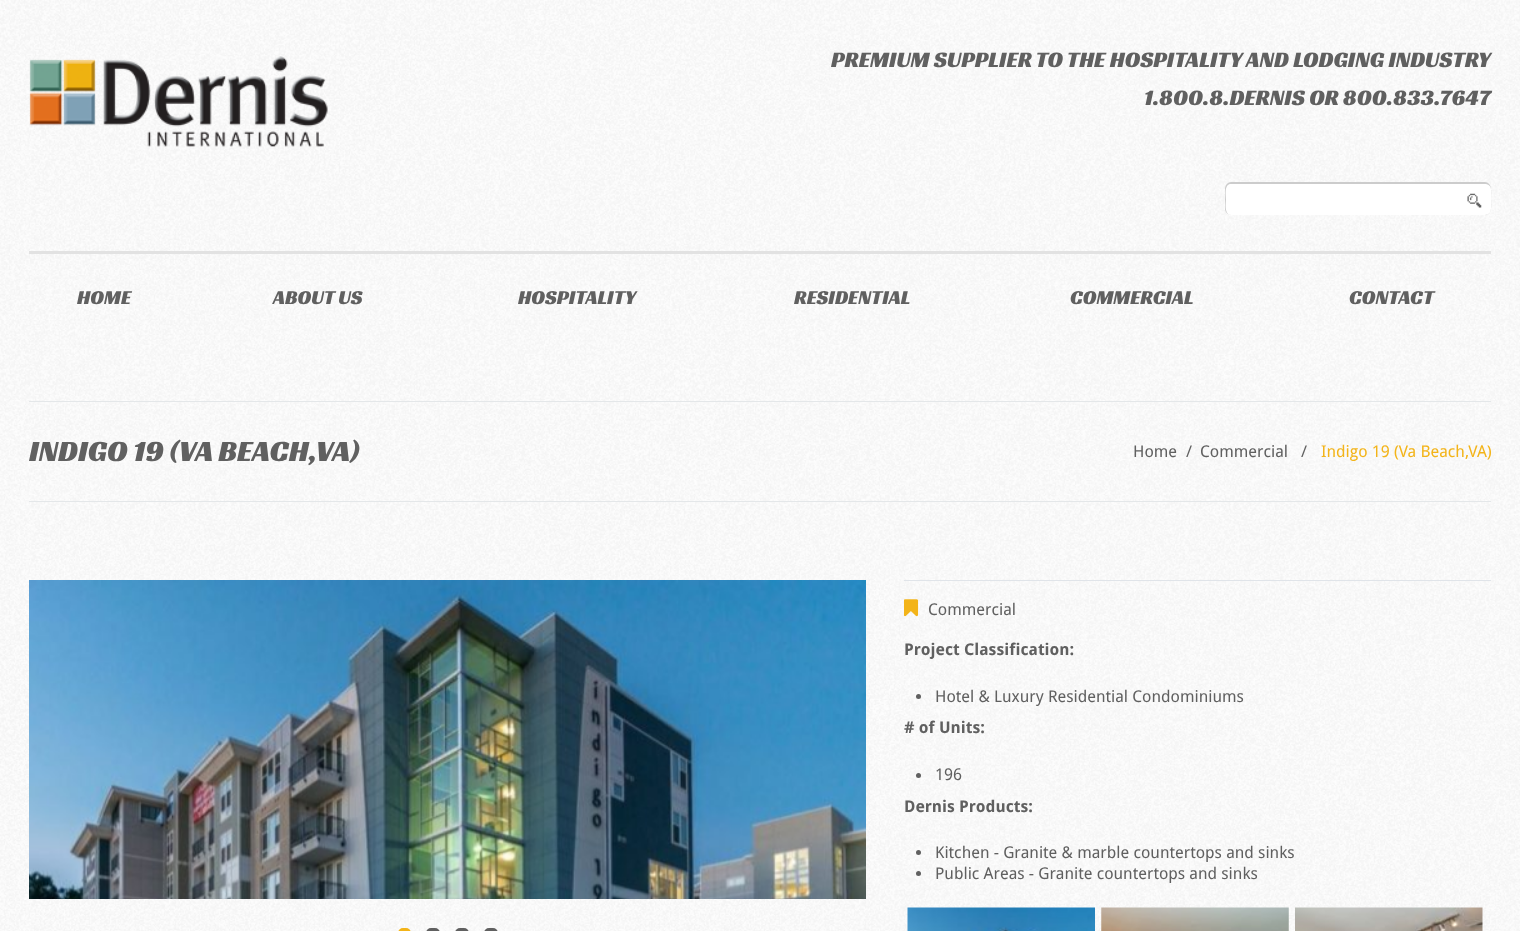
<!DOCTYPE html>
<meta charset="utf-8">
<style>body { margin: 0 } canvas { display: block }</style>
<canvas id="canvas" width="1520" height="931"></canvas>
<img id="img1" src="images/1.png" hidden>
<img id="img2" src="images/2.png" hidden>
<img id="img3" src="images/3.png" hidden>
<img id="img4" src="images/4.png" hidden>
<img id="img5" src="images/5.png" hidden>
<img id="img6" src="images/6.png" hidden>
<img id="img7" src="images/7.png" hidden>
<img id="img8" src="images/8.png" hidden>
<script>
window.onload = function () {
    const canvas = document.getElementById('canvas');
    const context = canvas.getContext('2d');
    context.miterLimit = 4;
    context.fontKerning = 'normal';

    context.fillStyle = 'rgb(255, 255, 255)';
    context.fillRect(0, 0, 1520, 931);
    context.drawImage(document.getElementById('img1'), 0, 0, 1520, 931);
    context.drawImage(document.getElementById('img2'), 29, 56, 299, 91);
    context.beginPath();
    context.roundRect(1225, 183, 266, 32, 6);
    context.fill();
    context.fillStyle = 'rgb(204, 204, 204)';
    context.beginPath();
    context.moveTo(1231, 182);
    context.lineTo(1485, 182);
    context.bezierCurveTo(1488, 182, 1491, 185, 1491, 189);
    context.lineTo(1491, 209);
    context.bezierCurveTo(1491, 212, 1488, 215, 1485, 215);
    context.lineTo(1231, 215);
    context.bezierCurveTo(1228, 215, 1225, 212, 1225, 209);
    context.lineTo(1225, 189);
    context.bezierCurveTo(1225, 185, 1228, 182, 1231, 182);
    context.closePath();
    context.moveTo(1231, 184);
    context.lineTo(1486, 184);
    context.bezierCurveTo(1493, 185, 1491, 194, 1491, 199);
    context.bezierCurveTo(1491, 204, 1493, 215, 1485, 215);
    context.lineTo(1230, 215);
    context.bezierCurveTo(1224, 213, 1226, 203, 1226, 199);
    context.bezierCurveTo(1226, 195, 1224, 184, 1231, 184);
    context.closePath();
    context.fill('evenodd');
    context.drawImage(document.getElementById('img3'), 1467, 193, 15, 15);
    context.fillStyle = 'rgb(226, 226, 226)';
    context.fillRect(29, 251, 1462, 3);
    context.fillStyle = 'rgb(228, 231, 233)';
    context.fillRect(29, 401, 1462, 1);
    context.fillRect(29, 501, 1462, 1);
    context.drawImage(document.getElementById('img4'), 29, 580, 837, 319);
    context.fillStyle = 'rgb(243, 180, 25)';
    context.beginPath();
    context.roundRect(398, 928, 13, 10, 6.5);
    context.fill();
    context.fillStyle = 'rgb(96, 96, 96)';
    context.beginPath();
    context.roundRect(426, 928, 14, 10, 6.5);
    context.fill();
    context.beginPath();
    context.roundRect(455, 928, 14, 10, 6.5);
    context.fill();
    context.beginPath();
    context.roundRect(484, 928, 14, 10, 6.5);
    context.fill();
    context.fillStyle = 'rgb(224, 228, 233)';
    context.fillRect(904, 580, 587, 1);
    context.drawImage(document.getElementById('img5'), 904, 599, 15, 18);
    context.fillStyle = 'rgb(96, 96, 96)';
    context.beginPath();
    context.arc(918.5, 696.5, 2.5, 0, 2 * Math.PI);
    context.fill();
    context.beginPath();
    context.arc(918.5, 775.5, 2.5, 0, 2 * Math.PI);
    context.fill();
    context.beginPath();
    context.arc(918.5, 852.5, 2.5, 0, 2 * Math.PI);
    context.fill();
    context.beginPath();
    context.arc(918.5, 873.5, 2.5, 0, 2 * Math.PI);
    context.fill();
    context.drawImage(document.getElementById('img6'), 907, 907, 188, 24);
    context.drawImage(document.getElementById('img7'), 1101, 907, 188, 24);
    context.drawImage(document.getElementById('img8'), 1295, 907, 188, 24);
    context.font = '22.5px Racing Sans One';
    context.fillText('PREMIUM SUPPLIER TO THE HOSPITALITY AND LODGING INDUSTRY', 831, 67);
    context.fillText('1.800.8.DERNIS OR 800.833.7647', 1144, 105);
    context.font = '20px Racing Sans One';
    context.fillText('HOME', 77, 304);
    context.fillText('ABOUT US', 273, 304);
    context.fillText('HOSPITALITY', 518, 304);
    context.fillText('RESIDENTIAL', 794, 304);
    context.fillText('COMMERCIAL', 1070, 304);
    context.fillText('CONTACT', 1349, 304);
    context.font = '30px Racing Sans One';
    context.fillText('INDIGO 19 (VA BEACH,VA)', 29, 461);
    context.font = '16.25px Droid Sans';
    context.fillText('Home', 1133, 457);
    context.fillText('/', 1186, 457);
    context.fillText('Commercial', 1200, 457);
    context.fillText('/', 1301, 457);
    context.fillStyle = 'rgb(243, 180, 25)';
    context.fillText('Indigo 19 (Va Beach,VA)', 1321, 457);
    context.fillStyle = 'rgb(96, 96, 96)';
    context.fillText('Commercial', 928, 615);
    context.font = 'bold 16.25px Droid Sans';
    context.fillText('Project Classification:', 904, 655);
    context.font = '16.25px Droid Sans';
    context.fillText('Hotel & Luxury Residential Condominiums', 935, 702);
    context.font = 'bold 16.25px Droid Sans';
    context.fillText('# of Units:', 904, 733);
    context.font = '16.25px Droid Sans';
    context.fillText('196', 935, 780);
    context.font = 'bold 16.25px Droid Sans';
    context.fillText('Dernis Products:', 904, 812);
    context.font = '16.25px Droid Sans';
    context.fillText('Kitchen - Granite & marble countertops and sinks', 935, 858);
    context.fillText('Public Areas - Granite countertops and sinks', 935, 879);
};
</script>
